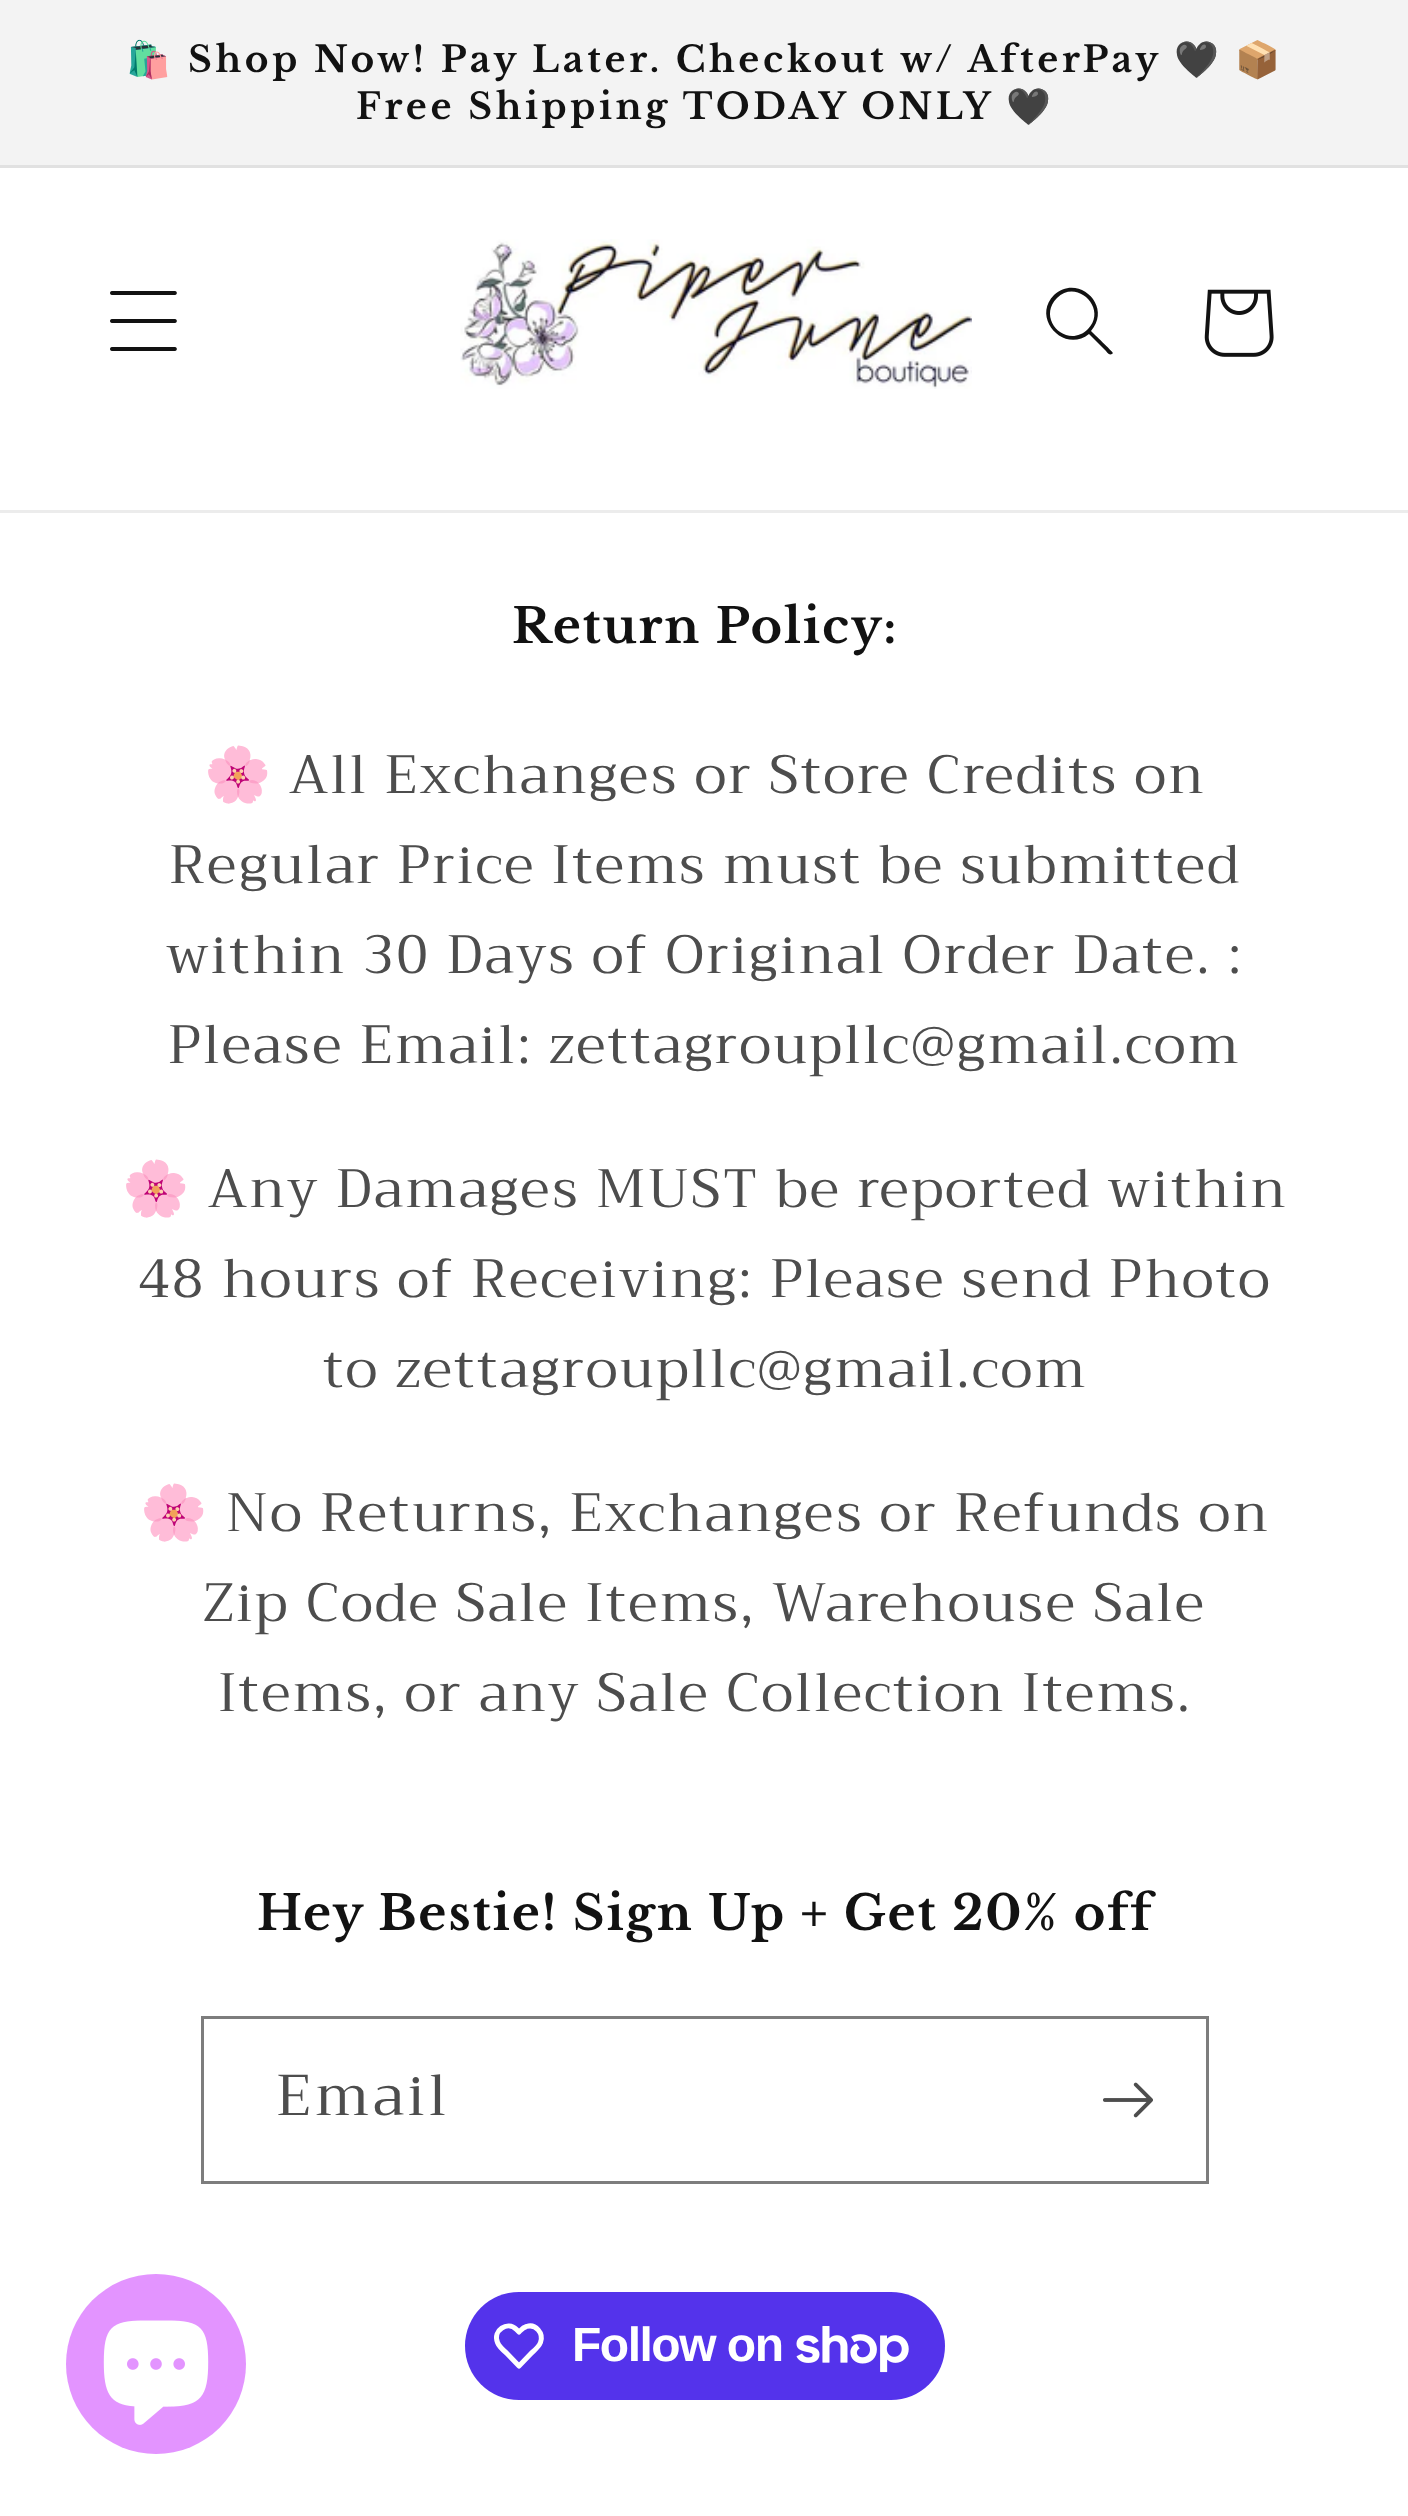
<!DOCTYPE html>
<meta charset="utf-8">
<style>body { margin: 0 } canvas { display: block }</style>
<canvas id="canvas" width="1408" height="2516"></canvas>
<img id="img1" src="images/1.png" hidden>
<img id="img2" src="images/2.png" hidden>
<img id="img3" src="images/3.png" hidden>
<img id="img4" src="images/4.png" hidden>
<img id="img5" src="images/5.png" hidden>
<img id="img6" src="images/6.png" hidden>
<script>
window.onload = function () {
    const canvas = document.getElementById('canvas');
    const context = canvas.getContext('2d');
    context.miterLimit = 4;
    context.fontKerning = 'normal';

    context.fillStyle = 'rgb(255, 255, 255)';
    context.fillRect(0, 0, 1408, 2516);
    context.fillStyle = 'rgb(243, 243, 243)';
    context.fillRect(0, 0, 1408, 165);
    context.fillStyle = 'rgb(225, 225, 225)';
    context.fillRect(0, 165, 1408, 3);
    context.drawImage(document.getElementById('img1'), 110, 291, 67, 60);
    context.drawImage(document.getElementById('img2'), 460, 239, 512, 150);
    context.fillStyle = 'rgb(18, 18, 18)';
    context.beginPath();
    context.moveTo(1088, 329);
    context.bezierCurveTo(1067, 350, 1036, 319, 1057, 298);
    context.bezierCurveTo(1077, 278, 1108, 309, 1088, 329);
    context.closePath();
    context.moveTo(1089, 334);
    context.bezierCurveTo(1064, 354, 1031, 318, 1054, 295);
    context.bezierCurveTo(1078, 273, 1113, 306, 1091, 331);
    context.bezierCurveTo(1094, 334, 1112, 351, 1113, 353);
    context.lineTo(1112, 354);
    context.bezierCurveTo(1109, 356, 1106, 351, 1106, 351);
    context.closePath();
    context.fill('evenodd');
    context.drawImage(document.getElementById('img3'), 1204, 289, 70, 68);
    context.fillStyle = 'rgb(236, 236, 236)';
    context.fillRect(0, 510, 1408, 3);
    context.strokeStyle = 'rgb(125, 125, 125)';
    context.lineWidth = 3;
    context.strokeRect(202.5, 2017.5, 1005, 165);
    context.drawImage(document.getElementById('img4'), 1103, 2082, 50, 36);
    context.fillStyle = 'rgb(84, 51, 235)';
    context.beginPath();
    context.roundRect(465, 2292, 480, 108, 54);
    context.fill();
    context.beginPath();
    context.moveTo(516.5, 2329.5);
    context.lineTo(519, 2332);
    context.bezierCurveTo(521, 2330, 523, 2327.5, 526.5, 2326.5);
    context.bezierCurveTo(535.5, 2323.5, 544, 2333, 540.5, 2342.5);
    context.bezierCurveTo(539, 2346.5, 535, 2350, 531.5, 2353);
    context.lineTo(519, 2366);
    context.lineTo(506.5, 2353);
    context.bezierCurveTo(503, 2350, 499, 2346.5, 497.5, 2342.5);
    context.bezierCurveTo(492.5, 2330.5, 507.5, 2320.5, 516.5, 2329.5);
    context.closePath();
    context.strokeStyle = 'rgb(255, 255, 255)';
    context.lineWidth = 5;
    context.lineJoin = 'round';
    context.stroke();
    context.drawImage(document.getElementById('img5'), 796, 2326, 113, 47);
    context.fillStyle = 'rgb(227, 148, 255)';
    context.beginPath();
    context.arc(156, 2364, 90, 0, 2 * Math.PI);
    context.fill();
    context.drawImage(document.getElementById('img6'), 103, 2320, 106, 105);
    context.letterSpacing = '3.6px';
    context.font = 'bold 36px Noto Color Emoji';
    context.fillStyle = 'rgb(18, 18, 18)';
    context.fillText('🛍', 126, 72);
    context.font = 'bold 36px Libre Baskerville';
    context.fillText('Shop Now! Pay Later. Checkout', 188, 72);
    context.fillText('w/ AfterPay', 900, 72);
    context.font = 'bold 36px Noto Color Emoji';
    context.fillText('🖤', 1174, 72);
    context.fillText('📦', 1235, 72);
    context.font = 'bold 36px Libre Baskerville';
    context.fillText('Free Shipping TODAY ONLY', 356, 119);
    context.font = 'bold 36px Noto Color Emoji';
    context.fillText('🖤', 1006, 119);
    context.letterSpacing = '1.8px';
    context.font = 'bold 48px Libre Baskerville';
    context.fillText('Return Policy:', 512, 643);
    context.letterSpacing = '2.15px';
    context.font = '54px Noto Color Emoji';
    context.fillStyle = 'rgb(77, 77, 77)';
    context.fillText('🌸', 204, 793);
    context.font = '54px Trirong';
    context.fillText('All Exchanges or Store Credits on', 289, 793);
    context.fillText('Regular Price Items must be submitted', 169, 883);
    context.fillText('within 30 Days of Original Order Date. :', 166, 973);
    context.fillText('Please Email: zettagroupllc@gmail.com', 168, 1063);
    context.font = '54px Noto Color Emoji';
    context.fillText('🌸', 122, 1207);
    context.font = '54px Trirong';
    context.fillText('Any Damages MUST be reported within', 208, 1207);
    context.fillText('48 hours of Receiving: Please send Photo', 138, 1297);
    context.fillText('to zettagroupllc@gmail.com', 323, 1387);
    context.font = '54px Noto Color Emoji';
    context.fillText('🌸', 140, 1531);
    context.font = '54px Trirong';
    context.fillText('No Returns, Exchanges or Refunds on', 226, 1531);
    context.fillText('Zip Code Sale Items, Warehouse Sale', 203, 1621);
    context.fillText('Items, or any Sale Collection Items.', 218, 1711);
    context.letterSpacing = '1.8px';
    context.font = 'bold 48px Libre Baskerville';
    context.fillStyle = 'rgb(18, 18, 18)';
    context.fillText('Hey Bestie! Sign Up + Get 20% off', 257, 1930);
    context.letterSpacing = '3.6px';
    context.font = '57.5px Trirong';
    context.fillStyle = 'rgb(77, 77, 77)';
    context.fillText('Email', 276, 2115);
    context.letterSpacing = '-1.5px';
    context.font = 'bold 48px Liberation Sans';
    context.fillStyle = 'rgb(255, 255, 255)';
    context.fillText('Follow on', 572, 2361);
};
</script>
